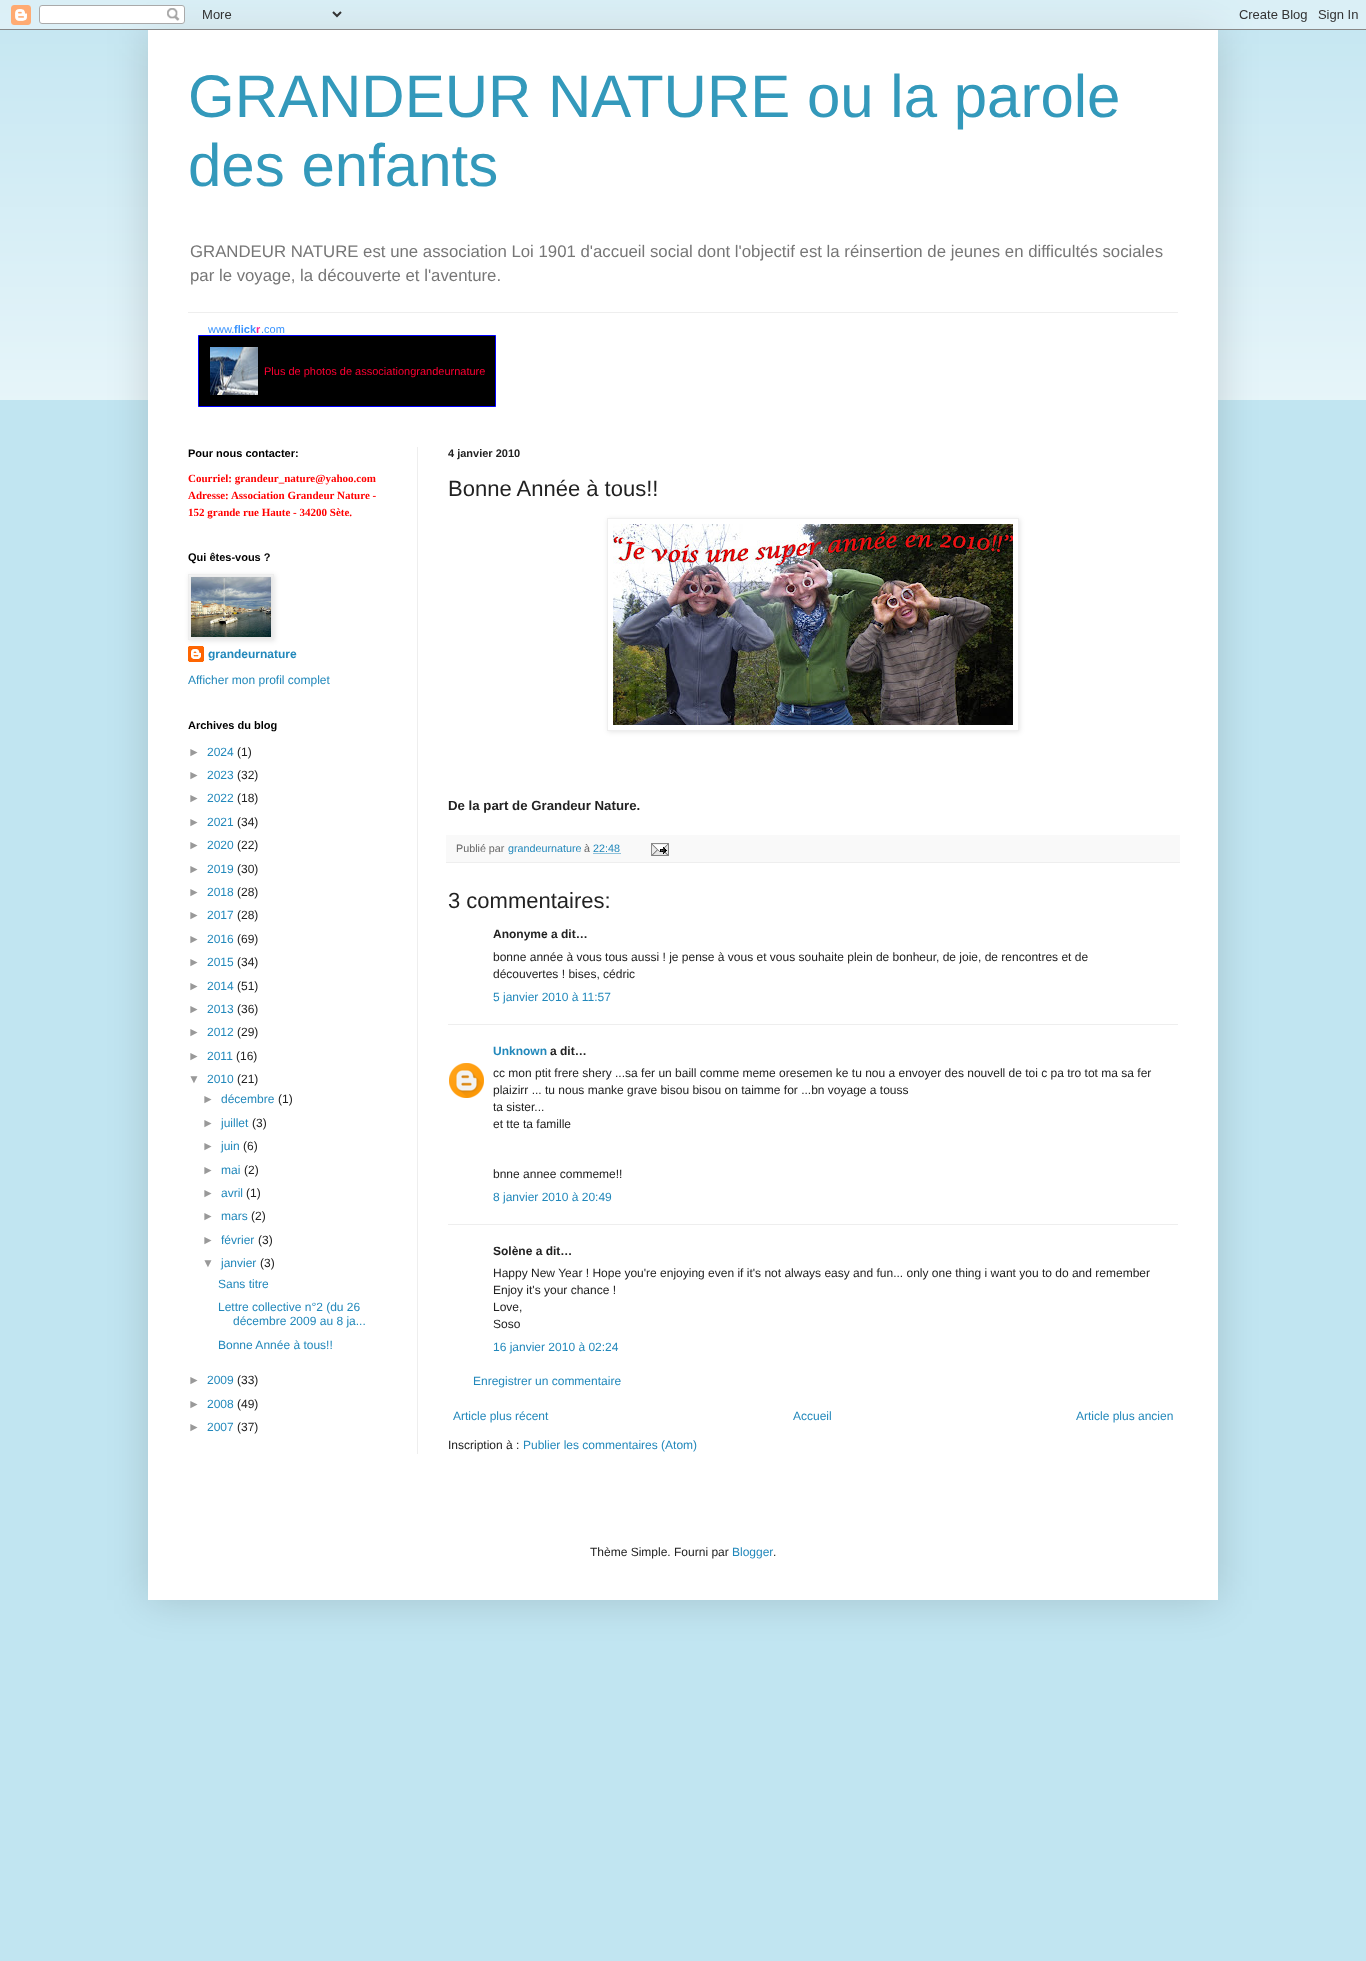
<!DOCTYPE html>
<meta charset="utf-8">
<style>body { margin: 0 } canvas { display: block }</style>
<canvas id="canvas" width="1366" height="1961"></canvas>
<img id="img1" src="images/2.png" hidden>
<img id="img2" src="images/1.png" hidden>
<img id="img3" src="images/3.png" hidden>
<img id="img4" src="images/5.png" hidden>
<img id="img5" src="images/4.png" hidden>
<img id="img6" src="images/6.png" hidden>
<img id="img7" src="images/7.png" hidden>
<img id="img8" src="images/8.png" hidden>
<script>
window.onload = function () {
    const canvas = document.getElementById('canvas');
    const context = canvas.getContext('2d');
    context.miterLimit = 4;
    context.fontKerning = 'normal';

    context.fillStyle = 'rgb(193, 229, 241)';
    context.fillRect(0, 0, 1366, 1961);
    context.drawImage(document.getElementById('img1'), 0, 10, 1366, 390);
    context.fillStyle = 'rgba(0, 0, 0, 0.15)';
    context.filter = 'blur(20px)';
    context.beginPath();
    context.rect(148, 30, 1070, 1570);
    context.fill();
    context.filter = 'none';
    context.drawImage(document.getElementById('img2'), 0, 0, 1366, 30);
    context.fillStyle = 'rgb(255, 255, 255)';
    context.fillRect(148, 30, 1070, 1570);
    context.fillStyle = 'rgb(238, 238, 238)';
    context.fillRect(188, 312, 990, 1);
    context.fillStyle = 'rgb(0, 0, 0)';
    context.beginPath();
    context.rect(198.5, 335.5, 297, 71);
    context.fill();
    context.strokeStyle = 'rgb(0, 0, 255)';
    context.stroke();
    context.drawImage(document.getElementById('img3'), 210, 347, 48, 48);
    context.fillStyle = 'rgb(238, 238, 238)';
    context.fillRect(417, 447, 1, 1007);
    context.drawImage(document.getElementById('img4'), 188, 646, 16, 16);
    context.fillStyle = 'rgba(0, 0, 0, 0.1)';
    context.filter = 'blur(2.5px)';
    context.beginPath();
    context.rect(189, 575, 86, 66);
    context.fill();
    context.filter = 'none';
    context.strokeStyle = 'rgb(238, 238, 238)';
    context.strokeRect(188.5, 574.5, 85, 65);
    context.drawImage(document.getElementById('img5'), 191, 577, 80, 60);
    context.save();
    context.beginPath();
    context.moveTo(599, 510);
    context.lineTo(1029, 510);
    context.lineTo(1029, 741);
    context.lineTo(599, 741);
    context.closePath();
    context.moveTo(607, 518);
    context.lineTo(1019, 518);
    context.lineTo(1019, 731);
    context.lineTo(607, 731);
    context.closePath();
    context.clip('evenodd');
    context.filter = 'blur(2.5px)';
    context.beginPath();
    context.rect(608, 519, 412, 213);
    context.fill();
    context.filter = 'none';
    context.restore();
    context.strokeRect(607.5, 518.5, 411, 212);
    context.drawImage(document.getElementById('img6'), 613, 524, 400, 201);
    context.fillStyle = 'rgb(249, 249, 249)';
    context.fillRect(446, 835, 734, 27);
    context.fillStyle = 'rgb(238, 238, 238)';
    context.fillRect(446, 862, 734, 1);
    context.beginPath();
    context.moveTo(593.5, 853.5);
    context.lineTo(620.5, 853.5);
    context.strokeStyle = 'rgb(34, 136, 187)';
    context.setLineDash([1, 1]);
    context.stroke();
    context.drawImage(document.getElementById('img7'), 651, 843, 18, 13);
    context.fillRect(448, 1024, 730, 1);
    context.drawImage(document.getElementById('img8'), 449, 1063, 35, 35);
    context.fillRect(448, 1224, 730, 1);
    context.font = '60px Liberation Sans';
    context.fillStyle = 'rgb(51, 153, 187)';
    context.fillText('GRANDEUR NATURE ou la parole', 188, 117);
    context.fillText('des enfants', 188, 186);
    context.font = '16.8px Liberation Sans';
    context.fillStyle = 'rgb(119, 119, 119)';
    context.fillText('GRANDEUR NATURE est une association Loi 1901 d\'accueil social dont l\'objectif est la réinsertion de jeunes en difficultés sociales', 190, 257);
    context.fillText('par le voyage, la découverte et l\'aventure.', 190, 281);
    context.font = '11px Liberation Sans';
    context.fillStyle = 'rgb(57, 147, 255)';
    context.fillText('www.', 208, 333);
    context.font = 'bold 11px Liberation Sans';
    context.fillText('flick', 234, 333);
    context.fillStyle = 'rgb(255, 28, 146)';
    context.fillText('r', 256, 333);
    context.font = '11px Liberation Sans';
    context.fillStyle = 'rgb(57, 147, 255)';
    context.fillText('.com', 261, 333);
    context.fillStyle = 'rgb(255, 0, 51)';
    context.fillText('Plus de photos de associationgrandeurnature', 264, 375);
    context.font = 'bold 11px Liberation Sans';
    context.fillStyle = 'rgb(0, 0, 0)';
    context.fillText('Pour nous contacter:', 188, 457);
    context.font = 'bold 11px Liberation Serif';
    context.fillStyle = 'rgb(255, 0, 0)';
    context.fillText('Courriel: grandeur_nature@yahoo.com', 188, 482);
    context.fillText('Adresse: Association Grandeur Nature -', 188, 499);
    context.fillText('152 grande rue Haute - 34200 Sète.', 188, 516);
    context.font = 'bold 11px Liberation Sans';
    context.fillStyle = 'rgb(0, 0, 0)';
    context.fillText('Qui êtes-vous ?', 188, 561);
    context.font = 'bold 12px Liberation Sans';
    context.fillStyle = 'rgb(34, 136, 187)';
    context.fillText('grandeurnature', 208, 658);
    context.font = '12px Liberation Sans';
    context.fillText('Afficher mon profil complet', 188, 684);
    context.font = 'bold 11px Liberation Sans';
    context.fillStyle = 'rgb(0, 0, 0)';
    context.fillText('Archives du blog', 188, 729);
    context.font = '12px Liberation Sans';
    context.fillStyle = 'rgb(153, 153, 153)';
    context.fillText('►', 188, 756);
    context.fillStyle = 'rgb(34, 136, 187)';
    context.fillText('2024', 207, 756);
    context.fillStyle = 'rgb(34, 34, 34)';
    context.fillText('(1)', 237, 756);
    context.fillStyle = 'rgb(153, 153, 153)';
    context.fillText('►', 188, 779);
    context.fillStyle = 'rgb(34, 136, 187)';
    context.fillText('2023', 207, 779);
    context.fillStyle = 'rgb(34, 34, 34)';
    context.fillText('(32)', 237, 779);
    context.fillStyle = 'rgb(153, 153, 153)';
    context.fillText('►', 188, 802);
    context.fillStyle = 'rgb(34, 136, 187)';
    context.fillText('2022', 207, 802);
    context.fillStyle = 'rgb(34, 34, 34)';
    context.fillText('(18)', 237, 802);
    context.fillStyle = 'rgb(153, 153, 153)';
    context.fillText('►', 188, 826);
    context.fillStyle = 'rgb(34, 136, 187)';
    context.fillText('2021', 207, 826);
    context.fillStyle = 'rgb(34, 34, 34)';
    context.fillText('(34)', 237, 826);
    context.fillStyle = 'rgb(153, 153, 153)';
    context.fillText('►', 188, 849);
    context.fillStyle = 'rgb(34, 136, 187)';
    context.fillText('2020', 207, 849);
    context.fillStyle = 'rgb(34, 34, 34)';
    context.fillText('(22)', 237, 849);
    context.fillStyle = 'rgb(153, 153, 153)';
    context.fillText('►', 188, 873);
    context.fillStyle = 'rgb(34, 136, 187)';
    context.fillText('2019', 207, 873);
    context.fillStyle = 'rgb(34, 34, 34)';
    context.fillText('(30)', 237, 873);
    context.fillStyle = 'rgb(153, 153, 153)';
    context.fillText('►', 188, 896);
    context.fillStyle = 'rgb(34, 136, 187)';
    context.fillText('2018', 207, 896);
    context.fillStyle = 'rgb(34, 34, 34)';
    context.fillText('(28)', 237, 896);
    context.fillStyle = 'rgb(153, 153, 153)';
    context.fillText('►', 188, 919);
    context.fillStyle = 'rgb(34, 136, 187)';
    context.fillText('2017', 207, 919);
    context.fillStyle = 'rgb(34, 34, 34)';
    context.fillText('(28)', 237, 919);
    context.fillStyle = 'rgb(153, 153, 153)';
    context.fillText('►', 188, 943);
    context.fillStyle = 'rgb(34, 136, 187)';
    context.fillText('2016', 207, 943);
    context.fillStyle = 'rgb(34, 34, 34)';
    context.fillText('(69)', 237, 943);
    context.fillStyle = 'rgb(153, 153, 153)';
    context.fillText('►', 188, 966);
    context.fillStyle = 'rgb(34, 136, 187)';
    context.fillText('2015', 207, 966);
    context.fillStyle = 'rgb(34, 34, 34)';
    context.fillText('(34)', 237, 966);
    context.fillStyle = 'rgb(153, 153, 153)';
    context.fillText('►', 188, 990);
    context.fillStyle = 'rgb(34, 136, 187)';
    context.fillText('2014', 207, 990);
    context.fillStyle = 'rgb(34, 34, 34)';
    context.fillText('(51)', 237, 990);
    context.fillStyle = 'rgb(153, 153, 153)';
    context.fillText('►', 188, 1013);
    context.fillStyle = 'rgb(34, 136, 187)';
    context.fillText('2013', 207, 1013);
    context.fillStyle = 'rgb(34, 34, 34)';
    context.fillText('(36)', 237, 1013);
    context.fillStyle = 'rgb(153, 153, 153)';
    context.fillText('►', 188, 1036);
    context.fillStyle = 'rgb(34, 136, 187)';
    context.fillText('2012', 207, 1036);
    context.fillStyle = 'rgb(34, 34, 34)';
    context.fillText('(29)', 237, 1036);
    context.fillStyle = 'rgb(153, 153, 153)';
    context.fillText('►', 188, 1060);
    context.fillStyle = 'rgb(34, 136, 187)';
    context.fillText('2011', 207, 1060);
    context.fillStyle = 'rgb(34, 34, 34)';
    context.fillText('(16)', 236, 1060);
    context.fillStyle = 'rgb(153, 153, 153)';
    context.fillText('▼', 188, 1083);
    context.fillStyle = 'rgb(34, 136, 187)';
    context.fillText('2010', 207, 1083);
    context.fillStyle = 'rgb(34, 34, 34)';
    context.fillText('(21)', 237, 1083);
    context.fillStyle = 'rgb(153, 153, 153)';
    context.fillText('►', 202, 1103);
    context.fillStyle = 'rgb(34, 136, 187)';
    context.fillText('décembre', 221, 1103);
    context.fillStyle = 'rgb(34, 34, 34)';
    context.fillText('(1)', 278, 1103);
    context.fillStyle = 'rgb(153, 153, 153)';
    context.fillText('►', 202, 1127);
    context.fillStyle = 'rgb(34, 136, 187)';
    context.fillText('juillet', 221, 1127);
    context.fillStyle = 'rgb(34, 34, 34)';
    context.fillText('(3)', 252, 1127);
    context.fillStyle = 'rgb(153, 153, 153)';
    context.fillText('►', 202, 1150);
    context.fillStyle = 'rgb(34, 136, 187)';
    context.fillText('juin', 221, 1150);
    context.fillStyle = 'rgb(34, 34, 34)';
    context.fillText('(6)', 243, 1150);
    context.fillStyle = 'rgb(153, 153, 153)';
    context.fillText('►', 202, 1174);
    context.fillStyle = 'rgb(34, 136, 187)';
    context.fillText('mai', 221, 1174);
    context.fillStyle = 'rgb(34, 34, 34)';
    context.fillText('(2)', 244, 1174);
    context.fillStyle = 'rgb(153, 153, 153)';
    context.fillText('►', 202, 1197);
    context.fillStyle = 'rgb(34, 136, 187)';
    context.fillText('avril', 221, 1197);
    context.fillStyle = 'rgb(34, 34, 34)';
    context.fillText('(1)', 246, 1197);
    context.fillStyle = 'rgb(153, 153, 153)';
    context.fillText('►', 202, 1220);
    context.fillStyle = 'rgb(34, 136, 187)';
    context.fillText('mars', 221, 1220);
    context.fillStyle = 'rgb(34, 34, 34)';
    context.fillText('(2)', 251, 1220);
    context.fillStyle = 'rgb(153, 153, 153)';
    context.fillText('►', 202, 1244);
    context.fillStyle = 'rgb(34, 136, 187)';
    context.fillText('février', 221, 1244);
    context.fillStyle = 'rgb(34, 34, 34)';
    context.fillText('(3)', 258, 1244);
    context.fillStyle = 'rgb(153, 153, 153)';
    context.fillText('▼', 202, 1267);
    context.fillStyle = 'rgb(34, 136, 187)';
    context.fillText('janvier', 221, 1267);
    context.fillStyle = 'rgb(34, 34, 34)';
    context.fillText('(3)', 260, 1267);
    context.fillStyle = 'rgb(34, 136, 187)';
    context.fillText('Sans titre', 218, 1288);
    context.fillText('Lettre collective n°2 (du 26', 218, 1311);
    context.fillText('décembre 2009 au 8 ja...', 233, 1325);
    context.fillText('Bonne Année à tous!!', 218, 1349);
    context.fillStyle = 'rgb(153, 153, 153)';
    context.fillText('►', 188, 1384);
    context.fillStyle = 'rgb(34, 136, 187)';
    context.fillText('2009', 207, 1384);
    context.fillStyle = 'rgb(34, 34, 34)';
    context.fillText('(33)', 237, 1384);
    context.fillStyle = 'rgb(153, 153, 153)';
    context.fillText('►', 188, 1408);
    context.fillStyle = 'rgb(34, 136, 187)';
    context.fillText('2008', 207, 1408);
    context.fillStyle = 'rgb(34, 34, 34)';
    context.fillText('(49)', 237, 1408);
    context.fillStyle = 'rgb(153, 153, 153)';
    context.fillText('►', 188, 1431);
    context.fillStyle = 'rgb(34, 136, 187)';
    context.fillText('2007', 207, 1431);
    context.fillStyle = 'rgb(34, 34, 34)';
    context.fillText('(37)', 237, 1431);
    context.font = 'bold 11px Liberation Sans';
    context.fillText('4 janvier 2010', 448, 457);
    context.font = '22px Liberation Sans';
    context.fillText('Bonne Année à tous!!', 448, 496);
    context.font = 'bold 13.25px Liberation Sans';
    context.fillText('De la part de Grandeur Nature.', 448, 810);
    context.font = '10.75px Liberation Sans';
    context.fillStyle = 'rgb(102, 102, 102)';
    context.fillText('Publié par', 456, 852);
    context.fillStyle = 'rgb(34, 136, 187)';
    context.fillText('grandeurnature', 508, 852);
    context.fillStyle = 'rgb(102, 102, 102)';
    context.fillText('à', 584, 852);
    context.fillStyle = 'rgb(34, 136, 187)';
    context.fillText('22:48', 593, 852);
    context.font = '22px Liberation Sans';
    context.fillStyle = 'rgb(34, 34, 34)';
    context.fillText('3 commentaires:', 448, 908);
    context.font = 'bold 12px Liberation Sans';
    context.fillText('Anonyme a dit…', 493, 938);
    context.font = '12px Liberation Sans';
    context.fillText('bonne année à vous tous aussi ! je pense à vous et vous souhaite plein de bonheur, de joie, de rencontres et de', 493, 961);
    context.fillText('découvertes ! bises, cédric', 493, 978);
    context.fillStyle = 'rgb(34, 136, 187)';
    context.fillText('5 janvier 2010 à 11:57', 493, 1001);
    context.font = 'bold 12px Liberation Sans';
    context.fillText('Unknown', 493, 1055);
    context.fillStyle = 'rgb(34, 34, 34)';
    context.fillText('a dit…', 550, 1055);
    context.font = '12px Liberation Sans';
    context.fillText('cc mon ptit frere shery ...sa fer un baill comme meme oresemen ke tu nou a envoyer des nouvell de toi c pa tro tot ma sa fer', 493, 1077);
    context.fillText('plaizirr ... tu nous manke grave bisou bisou on taimme for ...bn voyage a touss', 493, 1094);
    context.fillText('ta sister...', 493, 1111);
    context.fillText('et tte ta famille', 493, 1128);
    context.fillText('bnne annee commeme!!', 493, 1178);
    context.fillStyle = 'rgb(34, 136, 187)';
    context.fillText('8 janvier 2010 à 20:49', 493, 1201);
    context.font = 'bold 12px Liberation Sans';
    context.fillStyle = 'rgb(34, 34, 34)';
    context.fillText('Solène a dit…', 493, 1255);
    context.font = '12px Liberation Sans';
    context.fillText('Happy New Year ! Hope you\'re enjoying even if it\'s not always easy and fun... only one thing i want you to do and remember', 493, 1277);
    context.fillText('Enjoy it\'s your chance !', 493, 1294);
    context.fillText('Love,', 493, 1311);
    context.fillText('Soso', 493, 1328);
    context.fillStyle = 'rgb(34, 136, 187)';
    context.fillText('16 janvier 2010 à 02:24', 493, 1351);
    context.fillText('Enregistrer un commentaire', 473, 1385);
    context.fillText('Article plus récent', 453, 1420);
    context.fillText('Accueil', 793, 1420);
    context.fillText('Article plus ancien', 1076, 1420);
    context.fillStyle = 'rgb(34, 34, 34)';
    context.fillText('Inscription à :', 448, 1449);
    context.fillStyle = 'rgb(34, 136, 187)';
    context.fillText('Publier les commentaires (Atom)', 523, 1449);
    context.fillStyle = 'rgb(34, 34, 34)';
    context.fillText('Thème Simple. Fourni par', 590, 1556);
    context.fillStyle = 'rgb(34, 136, 187)';
    context.fillText('Blogger', 732, 1556);
    context.fillStyle = 'rgb(34, 34, 34)';
    context.fillText('.', 773, 1556);
};
</script>
